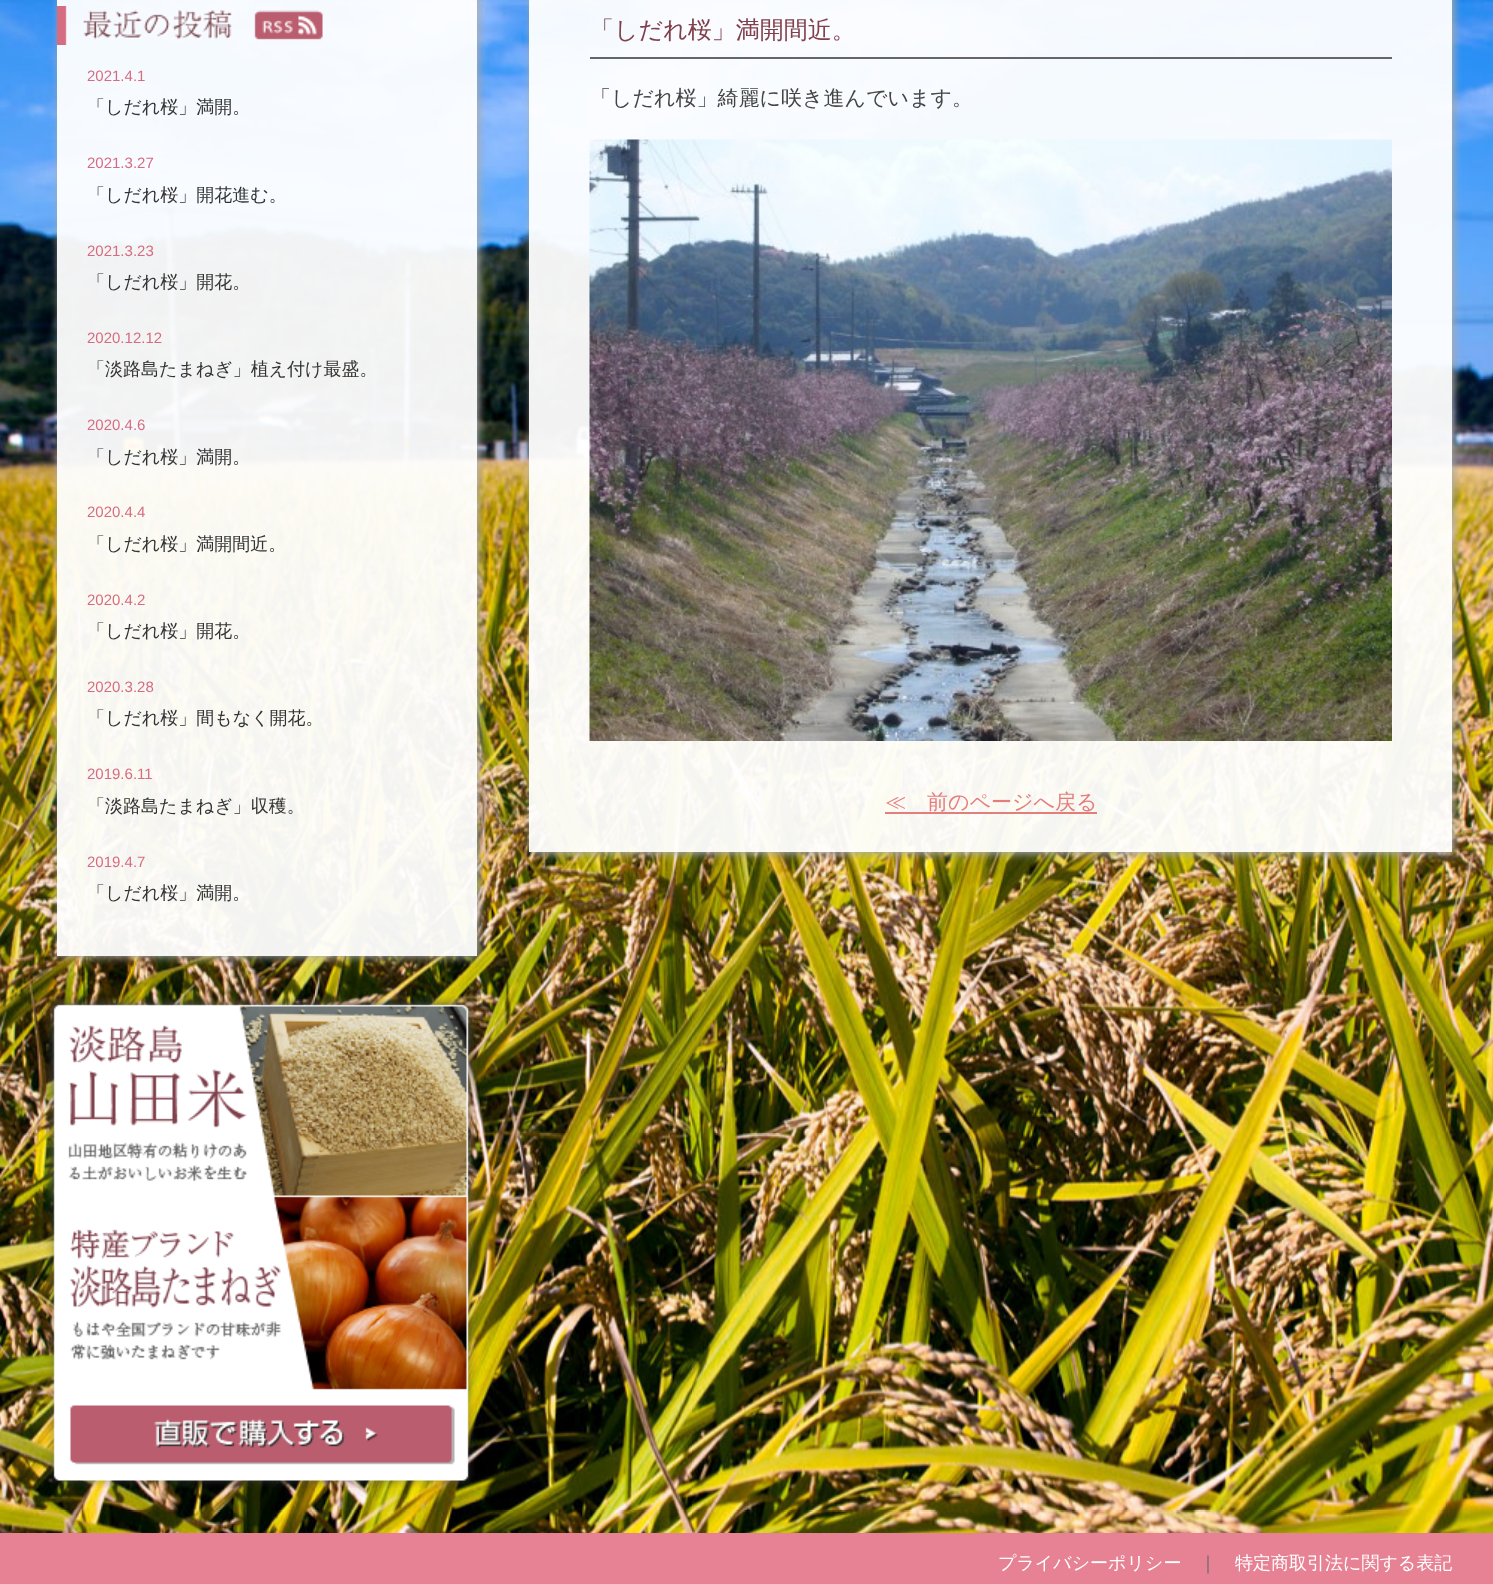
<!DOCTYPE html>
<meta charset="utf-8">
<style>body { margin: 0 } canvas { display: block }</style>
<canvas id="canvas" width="1493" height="1584"></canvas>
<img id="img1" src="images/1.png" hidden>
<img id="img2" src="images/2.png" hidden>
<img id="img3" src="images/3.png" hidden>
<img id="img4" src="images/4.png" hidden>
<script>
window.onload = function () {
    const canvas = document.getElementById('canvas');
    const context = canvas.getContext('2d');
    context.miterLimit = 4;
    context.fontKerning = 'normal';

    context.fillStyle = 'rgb(255, 255, 255)';
    context.fillRect(0, 0, 1493, 1584);
    context.drawImage(document.getElementById('img1'), 0, 0, 1493, 1533);
    context.save();
    context.beginPath();
    context.moveTo(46, 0);
    context.lineTo(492, 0);
    context.lineTo(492, 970);
    context.lineTo(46, 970);
    context.closePath();
    context.moveTo(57, -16);
    context.lineTo(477, -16);
    context.lineTo(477, 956);
    context.lineTo(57, 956);
    context.closePath();
    context.clip('evenodd');
    context.fillStyle = 'rgb(170, 170, 170)';
    context.filter = 'blur(4px)';
    context.beginPath();
    context.rect(59, -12, 420, 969);
    context.fill();
    context.filter = 'none';
    context.restore();
    context.fillStyle = 'rgba(255, 255, 255, 0.95)';
    context.fillRect(57, 0, 420, 956);
    context.drawImage(document.getElementById('img2'), 57, 6, 266, 39);
    context.drawImage(document.getElementById('img3'), 45, 996, 432, 492);
    context.save();
    context.beginPath();
    context.moveTo(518, 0);
    context.lineTo(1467, 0);
    context.lineTo(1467, 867);
    context.lineTo(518, 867);
    context.closePath();
    context.moveTo(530, -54);
    context.lineTo(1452, -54);
    context.lineTo(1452, 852);
    context.lineTo(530, 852);
    context.closePath();
    context.clip('evenodd');
    context.fillStyle = 'rgb(170, 170, 170)';
    context.filter = 'blur(4px)';
    context.beginPath();
    context.rect(531, -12, 923, 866);
    context.fill();
    context.filter = 'none';
    context.restore();
    context.fillRect(529, 0, 923, 852);
    context.fillStyle = 'rgb(102, 102, 102)';
    context.fillRect(590, 57, 802, 2);
    context.drawImage(document.getElementById('img4'), 589, 139, 803, 602);
    context.fillStyle = 'rgb(228, 126, 124)';
    context.fillRect(885, 812, 212, 2);
    context.fillStyle = 'rgb(230, 130, 148)';
    context.fillRect(0, 1533, 1493, 51);
    context.font = '15px Liberation Sans';
    context.fillStyle = 'rgb(214, 108, 127)';
    context.fillText('2021.4.1', 87, 81);
    context.font = '500 18px WenQuanYi Zen Hei';
    context.fillStyle = 'rgb(51, 51, 51)';
    context.fillText('「しだれ桜」満開。', 87, 113);
    context.font = '15px Liberation Sans';
    context.fillStyle = 'rgb(214, 108, 127)';
    context.fillText('2021.3.27', 87, 168);
    context.font = '500 18px WenQuanYi Zen Hei';
    context.fillStyle = 'rgb(51, 51, 51)';
    context.fillText('「しだれ桜」開花進む。', 87, 201);
    context.font = '15px Liberation Sans';
    context.fillStyle = 'rgb(214, 108, 127)';
    context.fillText('2021.3.23', 87, 256);
    context.font = '500 18px WenQuanYi Zen Hei';
    context.fillStyle = 'rgb(51, 51, 51)';
    context.fillText('「しだれ桜」開花。', 87, 288);
    context.font = '15px Liberation Sans';
    context.fillStyle = 'rgb(214, 108, 127)';
    context.fillText('2020.12.12', 87, 343);
    context.font = '500 18px WenQuanYi Zen Hei';
    context.fillStyle = 'rgb(51, 51, 51)';
    context.fillText('「淡路島たまねぎ」植え付け最盛。', 87, 375);
    context.font = '15px Liberation Sans';
    context.fillStyle = 'rgb(214, 108, 127)';
    context.fillText('2020.4.6', 87, 430);
    context.font = '500 18px WenQuanYi Zen Hei';
    context.fillStyle = 'rgb(51, 51, 51)';
    context.fillText('「しだれ桜」満開。', 87, 463);
    context.font = '15px Liberation Sans';
    context.fillStyle = 'rgb(214, 108, 127)';
    context.fillText('2020.4.4', 87, 517);
    context.font = '500 18px WenQuanYi Zen Hei';
    context.fillStyle = 'rgb(51, 51, 51)';
    context.fillText('「しだれ桜」満開間近。', 87, 550);
    context.font = '15px Liberation Sans';
    context.fillStyle = 'rgb(214, 108, 127)';
    context.fillText('2020.4.2', 87, 605);
    context.font = '500 18px WenQuanYi Zen Hei';
    context.fillStyle = 'rgb(51, 51, 51)';
    context.fillText('「しだれ桜」開花。', 87, 637);
    context.font = '15px Liberation Sans';
    context.fillStyle = 'rgb(214, 108, 127)';
    context.fillText('2020.3.28', 87, 692);
    context.font = '500 18px WenQuanYi Zen Hei';
    context.fillStyle = 'rgb(51, 51, 51)';
    context.fillText('「しだれ桜」間もなく開花。', 87, 724);
    context.font = '15px Liberation Sans';
    context.fillStyle = 'rgb(214, 108, 127)';
    context.fillText('2019.6.11', 87, 779);
    context.font = '500 18px WenQuanYi Zen Hei';
    context.fillStyle = 'rgb(51, 51, 51)';
    context.fillText('「淡路島たまねぎ」収穫。', 87, 812);
    context.font = '15px Liberation Sans';
    context.fillStyle = 'rgb(214, 108, 127)';
    context.fillText('2019.4.7', 87, 867);
    context.font = '500 18px WenQuanYi Zen Hei';
    context.fillStyle = 'rgb(51, 51, 51)';
    context.fillText('「しだれ桜」満開。', 87, 899);
    context.font = '500 24px WenQuanYi Zen Hei';
    context.fillStyle = 'rgb(128, 64, 76)';
    context.fillText('「しだれ桜」満開間近。', 590, 38);
    context.font = '500 21px WenQuanYi Zen Hei';
    context.fillStyle = 'rgb(69, 69, 69)';
    context.fillText('「しだれ桜」綺麗に咲き進んでいます。', 590, 105);
    context.fillStyle = 'rgb(228, 126, 124)';
    context.fillText('≪　前のページへ戻る', 885, 809);
    context.font = '500 18px WenQuanYi Zen Hei';
    context.fillStyle = 'rgb(255, 255, 255)';
    context.fillText('プライバシーポリシー', 998, 1569);
    context.fillStyle = 'rgb(102, 102, 102)';
    context.fillText('｜', 1199, 1569);
    context.fillStyle = 'rgb(255, 255, 255)';
    context.fillText('特定商取引法に関する表記', 1235, 1569);
};
</script>
